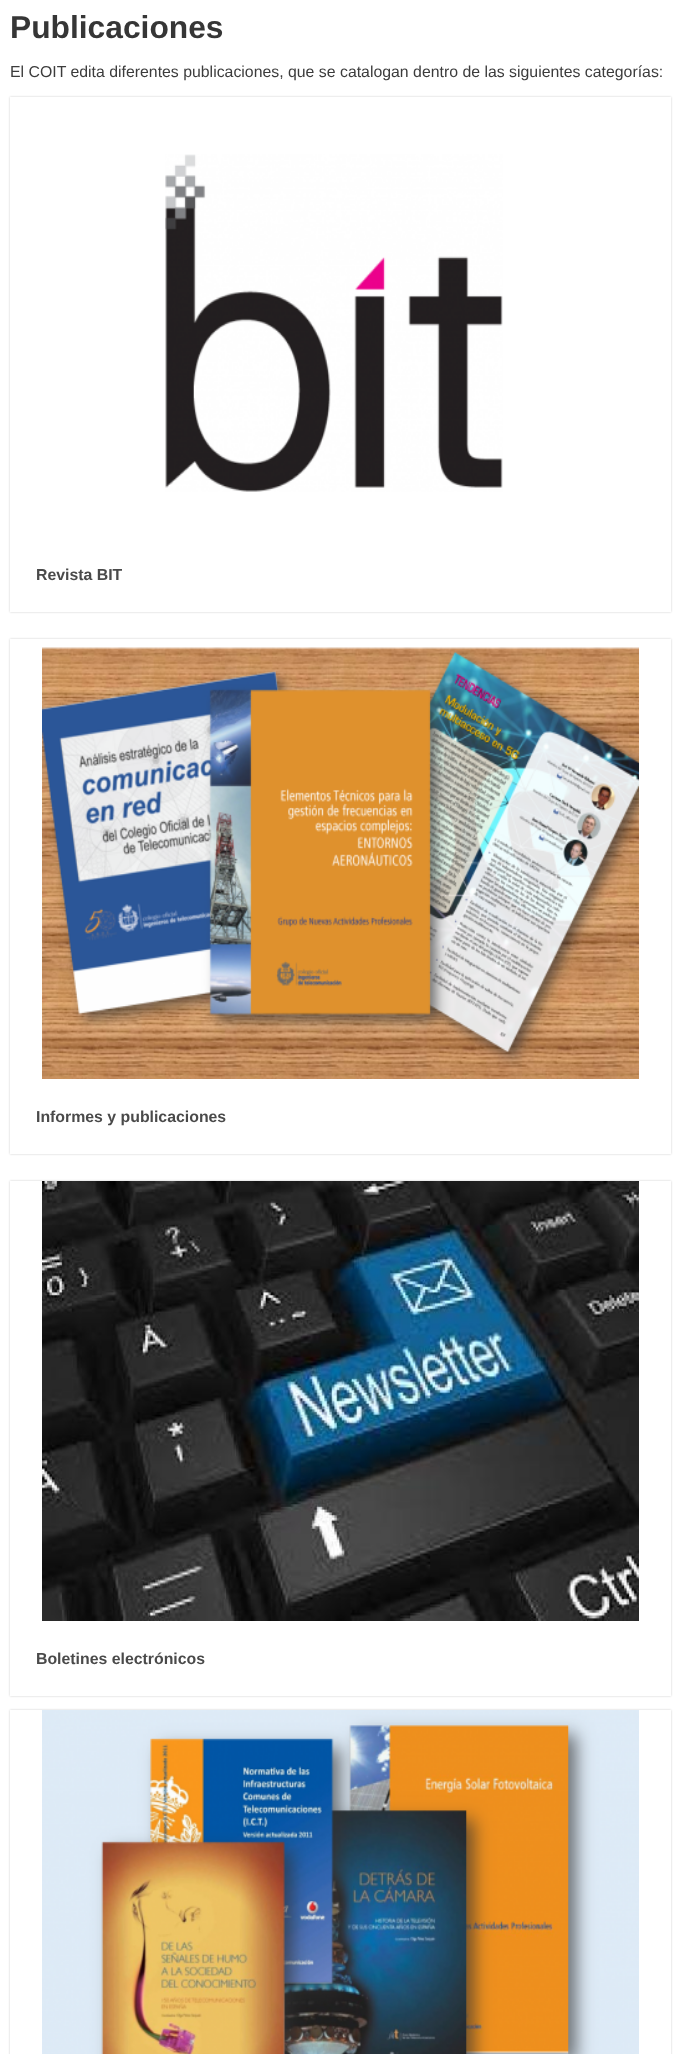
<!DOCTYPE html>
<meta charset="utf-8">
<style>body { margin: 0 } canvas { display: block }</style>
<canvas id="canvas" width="681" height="2054"></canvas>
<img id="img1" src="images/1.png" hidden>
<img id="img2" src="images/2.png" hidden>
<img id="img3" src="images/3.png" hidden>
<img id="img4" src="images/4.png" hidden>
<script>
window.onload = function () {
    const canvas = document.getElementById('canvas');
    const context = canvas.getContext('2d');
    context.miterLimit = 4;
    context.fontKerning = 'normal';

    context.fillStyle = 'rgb(255, 255, 255)';
    context.fillRect(0, 0, 681, 2054);
    context.fillStyle = 'rgba(0, 0, 0, 0.2)';
    context.filter = 'blur(1px)';
    context.beginPath();
    context.rect(10, 97, 661, 515);
    context.fill();
    context.filter = 'none';
    context.fillStyle = 'rgb(255, 255, 255)';
    context.fillRect(10, 97, 661, 515);
    context.drawImage(document.getElementById('img1'), 165, 154, 338, 338);
    context.fillStyle = 'rgba(0, 0, 0, 0.2)';
    context.filter = 'blur(1px)';
    context.beginPath();
    context.rect(10, 639, 661, 515);
    context.fill();
    context.filter = 'none';
    context.fillStyle = 'rgb(255, 255, 255)';
    context.fillRect(10, 639, 661, 515);
    context.drawImage(document.getElementById('img2'), 42, 647, 597, 432);
    context.fillStyle = 'rgba(0, 0, 0, 0.2)';
    context.filter = 'blur(1px)';
    context.beginPath();
    context.rect(10, 1181, 661, 515);
    context.fill();
    context.filter = 'none';
    context.fillStyle = 'rgb(255, 255, 255)';
    context.fillRect(10, 1181, 661, 515);
    context.drawImage(document.getElementById('img3'), 42, 1181, 597, 440);
    context.save();
    context.beginPath();
    context.moveTo(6, 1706);
    context.lineTo(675, 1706);
    context.lineTo(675, 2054);
    context.lineTo(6, 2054);
    context.closePath();
    context.moveTo(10, 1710);
    context.lineTo(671, 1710);
    context.lineTo(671, 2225);
    context.lineTo(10, 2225);
    context.closePath();
    context.clip('evenodd');
    context.fillStyle = 'rgba(0, 0, 0, 0.2)';
    context.filter = 'blur(1px)';
    context.beginPath();
    context.rect(10, 1710, 661, 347);
    context.fill();
    context.filter = 'none';
    context.restore();
    context.drawImage(document.getElementById('img4'), 42, 1710, 597, 344);
    context.font = 'bold 31.75px Liberation Sans';
    context.fillStyle = 'rgb(54, 54, 54)';
    context.fillText('Publicaciones', 10, 38);
    context.font = '15.85px Liberation Sans';
    context.fillStyle = 'rgb(60, 60, 60)';
    context.fillText('El COIT edita diferentes publicaciones, que se catalogan dentro de las siguientes categorías:', 10, 77);
    context.font = 'bold 15.85px Liberation Sans';
    context.fillStyle = 'rgb(74, 74, 74)';
    context.fillText('Revista BIT', 36, 580);
    context.fillText('Informes y publicaciones', 36, 1122);
    context.fillText('Boletines electrónicos', 36, 1664);
};
</script>
